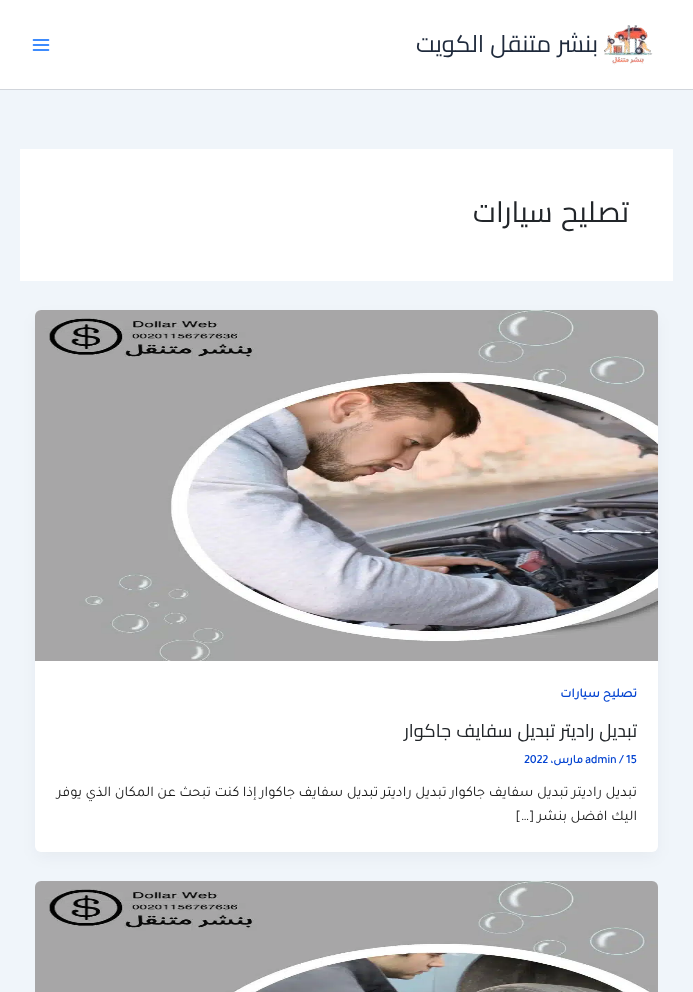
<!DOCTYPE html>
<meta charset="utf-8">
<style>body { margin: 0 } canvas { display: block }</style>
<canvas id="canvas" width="693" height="992"></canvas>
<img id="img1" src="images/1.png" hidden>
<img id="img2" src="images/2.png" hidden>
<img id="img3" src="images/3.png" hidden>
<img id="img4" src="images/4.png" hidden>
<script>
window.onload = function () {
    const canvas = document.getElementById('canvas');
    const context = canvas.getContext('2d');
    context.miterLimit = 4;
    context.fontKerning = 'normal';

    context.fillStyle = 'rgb(240, 245, 250)';
    context.fillRect(0, 0, 693, 992);
    context.fillStyle = 'rgb(255, 255, 255)';
    context.fillRect(0, 0, 693, 89);
    context.fillStyle = 'rgb(209, 213, 219)';
    context.fillRect(0, 89, 693, 1);
    context.drawImage(document.getElementById('img1'), 604, 25, 49, 40);
    context.drawImage(document.getElementById('img2'), 32, 39, 18, 12);
    context.fillStyle = 'rgb(255, 255, 255)';
    context.fillRect(20, 149, 653, 132);
    context.fillStyle = 'rgba(16, 24, 40, 0.05)';
    context.filter = 'blur(7.5px)';
    context.beginPath();
    context.roundRect(37, 318, 619, 538, 4);
    context.fill();
    context.filter = 'none';
    context.fillStyle = 'rgb(255, 255, 255)';
    context.beginPath();
    context.roundRect(35, 310, 623, 542, 6);
    context.fill();
    context.drawImage(document.getElementById('img3'), 35, 310, 623, 351);
    context.drawImage(document.getElementById('img4'), 35, 881, 623, 111);
    context.wordSpacing = '1px';
    context.direction = 'rtl';
    context.font = '23.75px Cairo';
    context.fillStyle = 'rgb(30, 41, 59)';
    context.fillText('بنشر متنقل الكويت', 598, 52);
    context.wordSpacing = '2px';
    context.font = '29px Cairo';
    context.fillStyle = 'rgb(33, 37, 41)';
    context.fillText('تصليح سيارات', 629, 222);
    context.wordSpacing = '0px';
    context.font = 'bold 12.75px Tajawal';
    context.fillStyle = 'rgb(4, 68, 209)';
    context.fillText('تصليح سيارات', 637, 697);
    context.wordSpacing = '1px';
    context.font = '18.25px Cairo';
    context.fillStyle = 'rgb(33, 37, 41)';
    context.fillText('تبديل راديتر تبديل سفايف جاكوار', 637, 737);
    context.wordSpacing = '0px';
    context.direction = 'ltr';
    context.font = 'bold 12px Tajawal';
    context.fillStyle = 'rgb(4, 68, 209)';
    context.fillText('admin / 15', 585, 763);
    context.direction = 'rtl';
    context.fillText('مارس،', 583, 763);
    context.direction = 'ltr';
    context.fillText('2022', 524, 763);
    context.direction = 'rtl';
    context.font = '14.6px Tajawal';
    context.fillStyle = 'rgb(26, 26, 26)';
    context.fillText('تبديل راديتر تبديل سفايف جاكوار تبديل راديتر تبديل سفايف جاكوار إذا كنت تبحث عن المكان الذي يوفر', 637, 796);
    context.fillText('اليك افضل بنشر […]', 637, 820);
};
</script>
